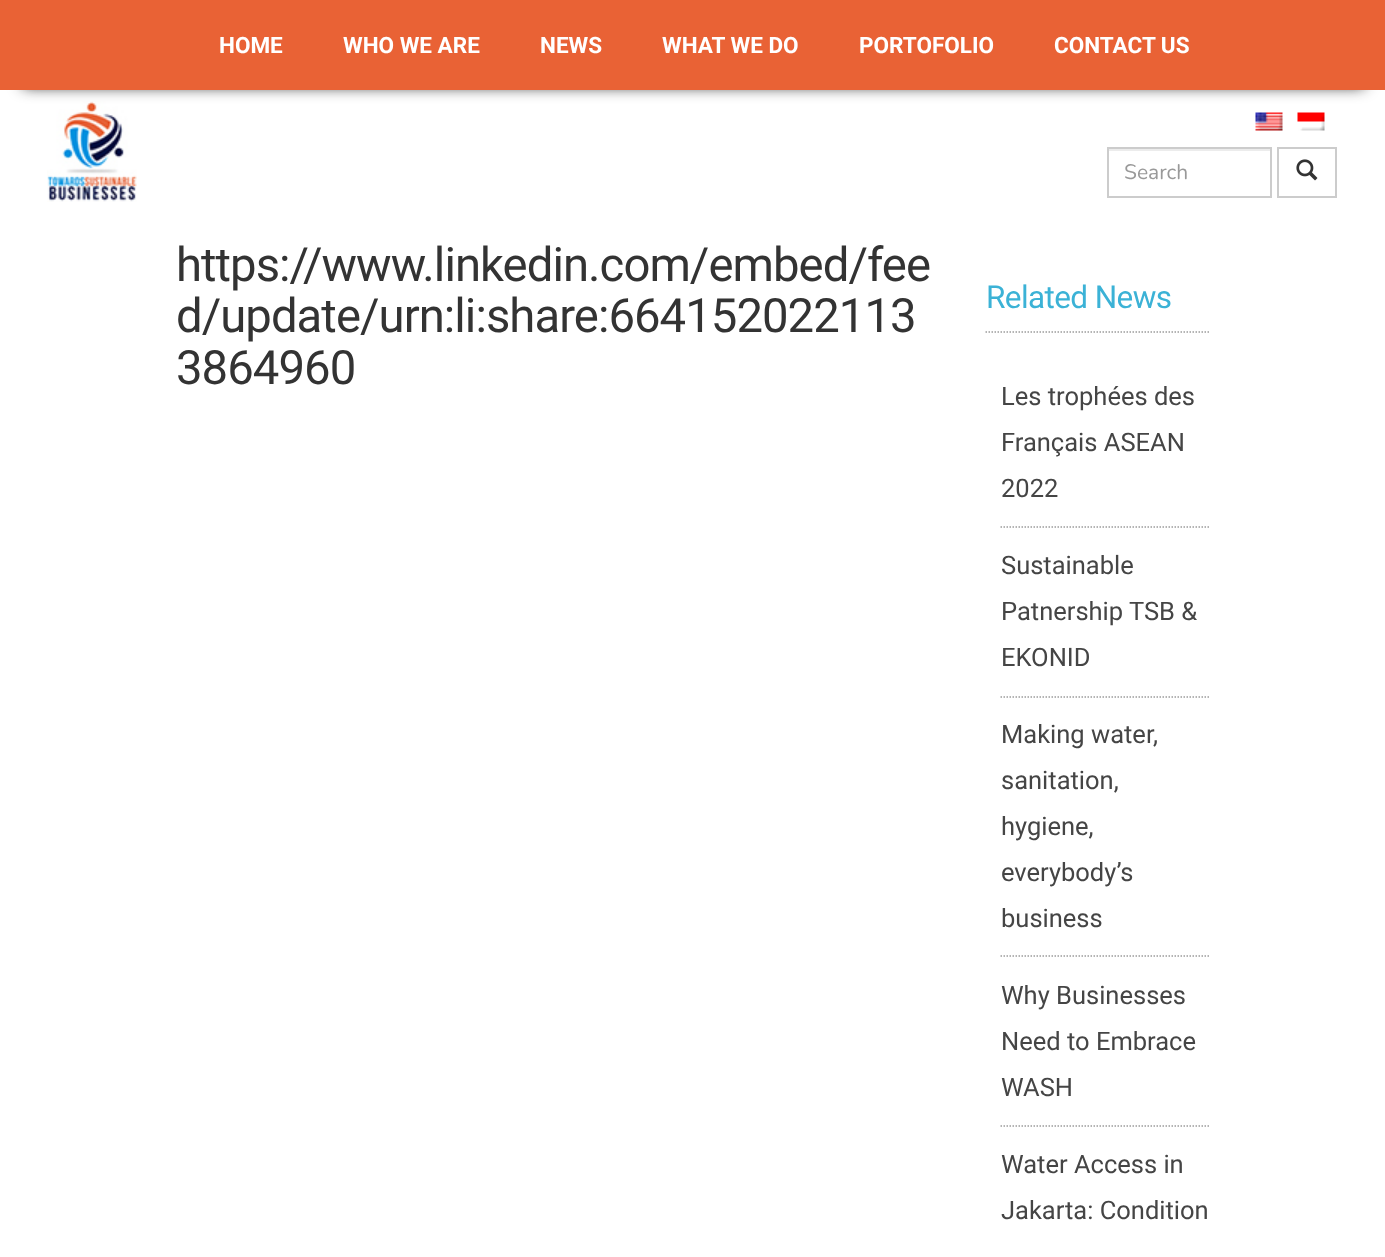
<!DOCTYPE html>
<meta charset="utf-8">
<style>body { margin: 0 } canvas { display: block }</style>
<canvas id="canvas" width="1385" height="1257"></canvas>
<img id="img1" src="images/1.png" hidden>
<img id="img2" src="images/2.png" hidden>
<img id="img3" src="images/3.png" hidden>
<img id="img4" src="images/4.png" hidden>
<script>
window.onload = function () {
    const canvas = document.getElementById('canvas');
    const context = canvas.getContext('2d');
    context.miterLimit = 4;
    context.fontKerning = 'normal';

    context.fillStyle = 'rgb(255, 255, 255)';
    context.fillRect(0, 0, 1385, 1257);
    context.drawImage(document.getElementById('img1'), 47, 101, 90, 101);
    context.fillStyle = 'rgb(17, 17, 17)';
    context.filter = 'blur(7.5px)';
    context.beginPath();
    context.rect(23, 41, 1341, 45);
    context.fill();
    context.filter = 'none';
    context.fillStyle = 'rgb(233, 98, 53)';
    context.fillRect(0, 0, 1385, 90);
    context.drawImage(document.getElementById('img2'), 1255, 112, 28, 19);
    context.drawImage(document.getElementById('img3'), 1297, 112, 28, 19);
    context.fillStyle = 'rgb(236, 236, 236)';
    context.fillRect(1109, 149, 162, 2);
    context.strokeStyle = 'rgb(204, 204, 204)';
    context.lineWidth = 2;
    context.strokeRect(1108, 148, 163, 49);
    context.strokeRect(1278, 148, 58, 49);
    context.drawImage(document.getElementById('img4'), 1296, 159, 22, 22);
    context.beginPath();
    context.moveTo(985.5, 332);
    context.lineTo(1210.5, 332);
    context.strokeStyle = 'rgb(156, 156, 156)';
    context.lineWidth = 1.5;
    context.setLineDash([1.5, 1.5]);
    context.stroke();
    context.beginPath();
    context.moveTo(1000.5, 527);
    context.lineTo(1210.5, 527);
    context.stroke();
    context.beginPath();
    context.moveTo(1000.5, 697);
    context.lineTo(1210.5, 697);
    context.stroke();
    context.beginPath();
    context.moveTo(1000.5, 956);
    context.lineTo(1210.5, 956);
    context.stroke();
    context.beginPath();
    context.moveTo(1000.5, 1126);
    context.lineTo(1210.5, 1126);
    context.stroke();
    context.font = 'bold 22.5px Roboto';
    context.fillStyle = 'rgb(255, 255, 255)';
    context.fillText('HOME', 219, 53);
    context.fillText('WHO WE ARE', 343, 53);
    context.fillText('NEWS', 540, 53);
    context.fillText('WHAT WE DO', 662, 53);
    context.fillText('PORTOFOLIO', 859, 53);
    context.fillText('CONTACT US', 1054, 53);
    context.font = '21px Nunito';
    context.fillStyle = 'rgb(153, 153, 153)';
    context.fillText('Search', 1124, 179);
    context.letterSpacing = '-0.95px';
    context.font = '47.25px Roboto';
    context.fillStyle = 'rgb(51, 51, 51)';
    context.fillText('https://www.linkedin.com/embed/fee', 176, 281);
    context.fillText('d/update/urn:li:share:664152022113', 176, 332);
    context.fillText('3864960', 176, 384);
    context.letterSpacing = '-0.6px';
    context.font = '31.5px Roboto';
    context.fillStyle = 'rgb(59, 178, 214)';
    context.fillText('Related News', 986, 308);
    context.letterSpacing = '0px';
    context.font = '25.5px Roboto';
    context.fillStyle = 'rgb(69, 69, 69)';
    context.fillText('Les trophées des', 1001, 405);
    context.fillText('Français ASEAN', 1001, 451);
    context.fillText('2022', 1001, 497);
    context.fillText('Sustainable', 1001, 574);
    context.fillText('Patnership TSB &', 1001, 620);
    context.fillText('EKONID', 1001, 666);
    context.fillText('Making water,', 1001, 743);
    context.fillText('sanitation,', 1001, 789);
    context.fillText('hygiene,', 1001, 835);
    context.fillText('everybody’s', 1001, 881);
    context.fillText('business', 1001, 927);
    context.fillText('Why Businesses', 1001, 1004);
    context.fillText('Need to Embrace', 1001, 1050);
    context.fillText('WASH', 1001, 1096);
    context.fillText('Water Access in', 1001, 1173);
    context.fillText('Jakarta: Condition', 1001, 1219);
};
</script>
